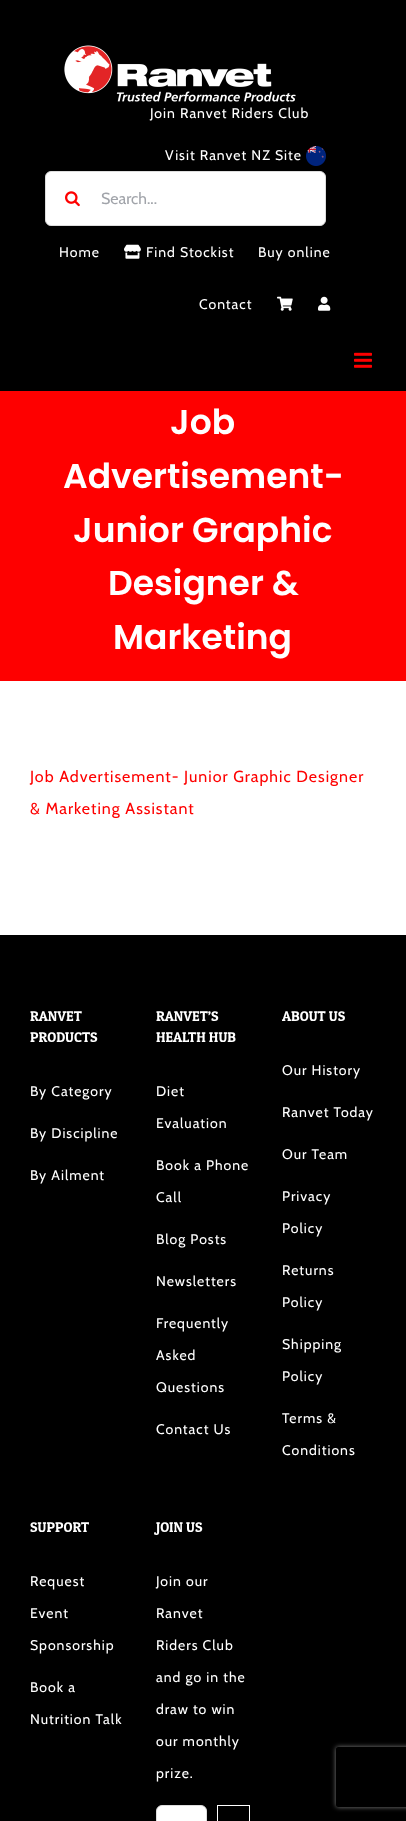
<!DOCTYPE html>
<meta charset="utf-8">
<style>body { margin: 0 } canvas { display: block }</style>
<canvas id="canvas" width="406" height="1821"></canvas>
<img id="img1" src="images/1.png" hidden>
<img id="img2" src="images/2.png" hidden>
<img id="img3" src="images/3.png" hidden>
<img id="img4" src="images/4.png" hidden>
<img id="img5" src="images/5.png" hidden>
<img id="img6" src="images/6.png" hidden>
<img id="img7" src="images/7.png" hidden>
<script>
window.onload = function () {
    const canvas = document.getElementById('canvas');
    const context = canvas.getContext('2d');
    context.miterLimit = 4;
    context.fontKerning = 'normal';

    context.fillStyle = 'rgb(255, 255, 255)';
    context.fillRect(0, 0, 406, 1821);
    context.fillStyle = 'rgb(0, 0, 0)';
    context.fillRect(0, 0, 406, 391);
    context.drawImage(document.getElementById('img1'), 64, 45, 232, 57);
    context.drawImage(document.getElementById('img2'), 306, 146, 20, 20);
    context.fillStyle = 'rgb(255, 255, 255)';
    context.beginPath();
    context.roundRect(45.5, 171.5, 280, 54, 5.5);
    context.fill();
    context.strokeStyle = 'rgb(221, 221, 221)';
    context.stroke();
    context.drawImage(document.getElementById('img3'), 65, 191, 15, 16);
    context.drawImage(document.getElementById('img4'), 124, 244, 17, 15);
    context.drawImage(document.getElementById('img5'), 277, 296, 16, 15);
    context.drawImage(document.getElementById('img6'), 318, 296, 13, 15);
    context.drawImage(document.getElementById('img7'), 354, 352, 18, 16);
    context.fillStyle = 'rgb(254, 0, 0)';
    context.fillRect(0, 391, 406, 290);
    context.fillStyle = 'rgb(0, 0, 0)';
    context.fillRect(0, 935, 406, 886);
    context.fillStyle = 'rgb(255, 255, 255)';
    context.beginPath();
    context.roundRect(156.5, 1805.5, 50, 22, 5.5);
    context.fill();
    context.stroke();
    context.strokeStyle = 'rgb(255, 255, 255)';
    context.strokeRect(217.5, 1805.5, 32, 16);
    context.save();
    context.beginPath();
    context.moveTo(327, 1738);
    context.lineTo(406, 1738);
    context.lineTo(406, 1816);
    context.lineTo(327, 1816);
    context.closePath();
    context.moveTo(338, 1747);
    context.lineTo(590, 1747);
    context.bezierCurveTo(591, 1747, 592, 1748, 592, 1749);
    context.lineTo(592, 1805);
    context.bezierCurveTo(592, 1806, 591, 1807, 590, 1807);
    context.lineTo(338, 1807);
    context.bezierCurveTo(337, 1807, 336, 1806, 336, 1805);
    context.lineTo(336, 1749);
    context.bezierCurveTo(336, 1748, 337, 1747, 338, 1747);
    context.closePath();
    context.clip('evenodd');
    context.fillStyle = 'rgb(128, 128, 128)';
    context.filter = 'blur(2.5px)';
    context.beginPath();
    context.roundRect(336, 1747, 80, 60, 2);
    context.fill();
    context.filter = 'none';
    context.restore();
    context.letterSpacing = '1px';
    context.font = '14px Cabin';
    context.fillText('Join Ranvet Riders Club', 150, 118);
    context.fillText('Visit Ranvet NZ Site', 165, 160);
    context.letterSpacing = '0px';
    context.font = '16px Cabin';
    context.fillStyle = 'rgb(161, 164, 170)';
    context.fillText('Search...', 101, 204);
    context.letterSpacing = '1px';
    context.font = '14px Cabin';
    context.fillStyle = 'rgb(255, 255, 255)';
    context.fillText('Home', 59, 257);
    context.fillText('Find Stockist', 146, 257);
    context.fillText('Buy online', 258, 257);
    context.fillText('Contact', 199, 309);
    context.letterSpacing = '0px';
    context.font = '600 34.5px Poppins';
    context.fillText('Job', 170, 434);
    context.fillText('Advertisement-', 63, 488);
    context.fillText('Junior Graphic', 73, 542);
    context.fillText('Designer &', 108, 595);
    context.fillText('Marketing', 113, 649);
    context.letterSpacing = '1px';
    context.font = '16px Cabin';
    context.fillStyle = 'rgb(254, 0, 0)';
    context.fillText('Job Advertisement- Junior Graphic Designer', 30, 782);
    context.fillText('& Marketing Assistant', 30, 814);
    context.letterSpacing = '0px';
    context.font = '14px Patua One';
    context.fillStyle = 'rgb(255, 255, 255)';
    context.fillText('RANVET', 30, 1021);
    context.fillText('PRODUCTS', 30, 1042);
    context.letterSpacing = '1px';
    context.font = '14px Cabin';
    context.fillText('By Category', 30, 1096);
    context.fillText('By Discipline', 30, 1138);
    context.fillText('By Ailment', 30, 1180);
    context.letterSpacing = '0px';
    context.font = '14px Patua One';
    context.fillText('RANVET’S', 156, 1021);
    context.fillText('HEALTH HUB', 156, 1042);
    context.letterSpacing = '1px';
    context.font = '14px Cabin';
    context.fillText('Diet', 156, 1096);
    context.fillText('Evaluation', 156, 1128);
    context.fillText('Book a Phone', 156, 1170);
    context.fillText('Call', 156, 1202);
    context.fillText('Blog Posts', 156, 1244);
    context.fillText('Newsletters', 156, 1286);
    context.fillText('Frequently', 156, 1328);
    context.fillText('Asked', 156, 1360);
    context.fillText('Questions', 156, 1392);
    context.fillText('Contact Us', 156, 1434);
    context.letterSpacing = '0px';
    context.font = '14px Patua One';
    context.fillText('ABOUT US', 282, 1021);
    context.letterSpacing = '1px';
    context.font = '14px Cabin';
    context.fillText('Our History', 282, 1075);
    context.fillText('Ranvet Today', 282, 1117);
    context.fillText('Our Team', 282, 1159);
    context.fillText('Privacy', 282, 1201);
    context.fillText('Policy', 282, 1233);
    context.fillText('Returns', 282, 1275);
    context.fillText('Policy', 282, 1307);
    context.fillText('Shipping', 282, 1349);
    context.fillText('Policy', 282, 1381);
    context.fillText('Terms &', 282, 1423);
    context.fillText('Conditions', 282, 1455);
    context.letterSpacing = '0px';
    context.font = '14px Patua One';
    context.fillText('SUPPORT', 30, 1532);
    context.letterSpacing = '1px';
    context.font = '14px Cabin';
    context.fillText('Request', 30, 1586);
    context.fillText('Event', 30, 1618);
    context.fillText('Sponsorship', 30, 1650);
    context.fillText('Book a', 30, 1692);
    context.fillText('Nutrition Talk', 30, 1724);
    context.letterSpacing = '0px';
    context.font = '14px Patua One';
    context.fillText('JOIN US', 156, 1532);
    context.letterSpacing = '1px';
    context.font = '14px Cabin';
    context.fillText('Join our', 156, 1586);
    context.fillText('Ranvet', 156, 1618);
    context.fillText('Riders Club', 156, 1650);
    context.fillText('and go in the', 156, 1682);
    context.fillText('draw to win', 156, 1714);
    context.fillText('our monthly', 156, 1746);
    context.fillText('prize.', 156, 1778);
};
</script>
